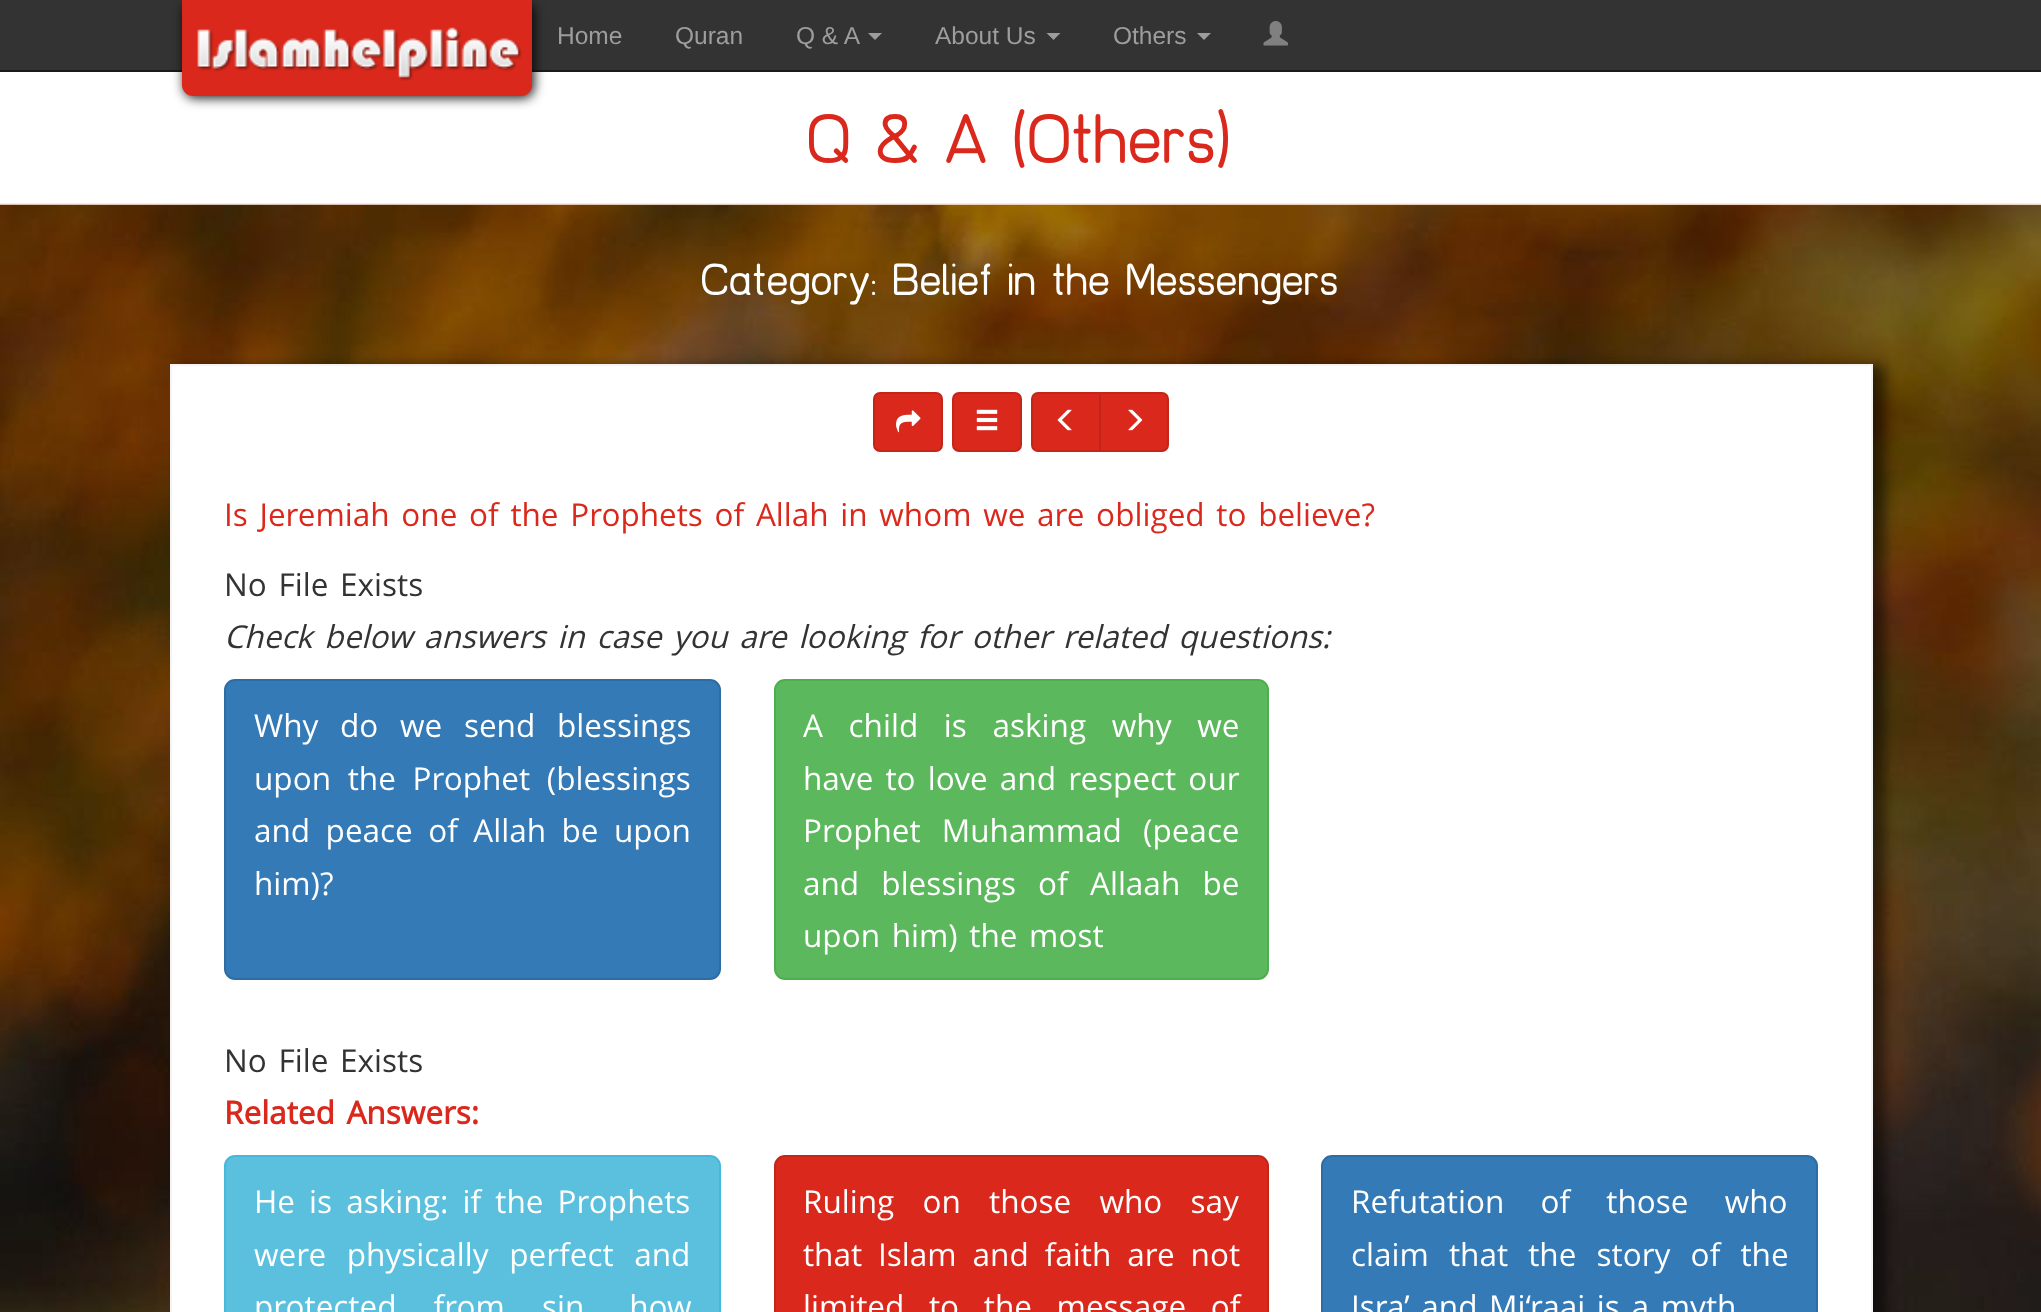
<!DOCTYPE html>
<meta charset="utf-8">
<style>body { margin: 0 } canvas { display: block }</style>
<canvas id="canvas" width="2041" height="1312"></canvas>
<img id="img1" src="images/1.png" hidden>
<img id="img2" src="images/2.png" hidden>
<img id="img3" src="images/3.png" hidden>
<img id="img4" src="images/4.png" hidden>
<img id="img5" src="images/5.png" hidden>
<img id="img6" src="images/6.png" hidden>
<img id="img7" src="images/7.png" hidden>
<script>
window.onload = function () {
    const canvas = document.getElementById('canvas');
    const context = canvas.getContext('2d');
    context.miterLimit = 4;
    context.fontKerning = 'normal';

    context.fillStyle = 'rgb(255, 255, 255)';
    context.fillRect(0, 0, 2041, 1312);
    context.fillStyle = 'rgb(51, 51, 51)';
    context.fillRect(0, 0, 2041, 70);
    context.fillStyle = 'rgb(26, 26, 26)';
    context.fillRect(0, 70, 2041, 2);
    context.fillStyle = 'rgba(0, 0, 0, 0.9)';
    context.filter = 'blur(6px)';
    context.beginPath();
    context.roundRect(184, 2, 350, 96, 11);
    context.fill();
    context.filter = 'none';
    context.fillStyle = 'rgb(218, 41, 28)';
    context.beginPath();
    context.roundRect(182, 0, 350, 96, [0, 0, 11, 11]);
    context.fill();
    context.drawImage(document.getElementById('img1'), 197, 27, 325, 54);
    context.fillStyle = 'rgb(157, 157, 157)';
    context.beginPath();
    context.moveTo(868, 33);
    context.lineTo(882, 33);
    context.lineTo(875, 40);
    context.closePath();
    context.fill();
    context.beginPath();
    context.moveTo(1046.5, 33);
    context.lineTo(1060.5, 33);
    context.lineTo(1053.5, 40);
    context.closePath();
    context.fill();
    context.beginPath();
    context.moveTo(1197, 33);
    context.lineTo(1211, 33);
    context.lineTo(1204, 40);
    context.closePath();
    context.fill();
    context.drawImage(document.getElementById('img2'), 1263, 21, 25, 25);
    context.fillStyle = 'rgb(251, 234, 232)';
    context.fillRect(0, 203, 2041, 2);
    context.drawImage(document.getElementById('img3'), 0, 204, 2041, 1108);
    context.fillStyle = 'rgba(0, 0, 0, 0.5)';
    context.filter = 'blur(6px)';
    context.beginPath();
    context.rect(182, 366, 1703, 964);
    context.fill();
    context.filter = 'none';
    context.fillStyle = 'rgb(255, 255, 255)';
    context.beginPath();
    context.rect(171, 365, 1701, 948);
    context.fill();
    context.strokeStyle = 'rgb(244, 244, 244)';
    context.lineWidth = 2;
    context.stroke();
    context.fillStyle = 'rgb(218, 41, 28)';
    context.beginPath();
    context.roundRect(874, 393, 68, 58, 6);
    context.fill();
    context.strokeStyle = 'rgb(195, 37, 25)';
    context.stroke();
    context.drawImage(document.getElementById('img4'), 896, 410, 25, 23);
    context.beginPath();
    context.roundRect(953, 393, 68, 58, 6);
    context.fill();
    context.stroke();
    context.drawImage(document.getElementById('img5'), 976, 409, 22, 22);
    context.beginPath();
    context.roundRect(1032, 393, 68, 58, [6, 0, 0, 6]);
    context.fill();
    context.stroke();
    context.drawImage(document.getElementById('img6'), 1057, 409, 15, 22);
    context.beginPath();
    context.roundRect(1100, 393, 68, 58, [0, 6, 6, 0]);
    context.fill();
    context.stroke();
    context.drawImage(document.getElementById('img7'), 1128, 409, 15, 22);
    context.fillStyle = 'rgb(51, 122, 183)';
    context.beginPath();
    context.roundRect(225, 680, 495, 299, 10);
    context.fill();
    context.strokeStyle = 'rgb(46, 109, 164)';
    context.stroke();
    context.fillStyle = 'rgb(92, 184, 92)';
    context.beginPath();
    context.roundRect(775, 680, 493, 299, 10);
    context.fill();
    context.strokeStyle = 'rgb(76, 174, 76)';
    context.stroke();
    context.fillStyle = 'rgb(91, 192, 222)';
    context.beginPath();
    context.roundRect(225, 1156, 495, 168, 10);
    context.fill();
    context.strokeStyle = 'rgb(70, 184, 218)';
    context.stroke();
    context.fillStyle = 'rgb(218, 41, 28)';
    context.beginPath();
    context.roundRect(775, 1156, 493, 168, 10);
    context.fill();
    context.strokeStyle = 'rgb(195, 37, 25)';
    context.stroke();
    context.fillStyle = 'rgb(51, 122, 183)';
    context.beginPath();
    context.roundRect(1322, 1156, 495, 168, 10);
    context.fill();
    context.strokeStyle = 'rgb(46, 109, 164)';
    context.stroke();
    context.font = '24.5px Liberation Sans';
    context.fillStyle = 'rgb(157, 157, 157)';
    context.fillText('Home', 557, 44);
    context.fillText('Quran', 675, 44);
    context.fillText('Q & A', 796, 44);
    context.fillText('About Us', 935, 44);
    context.fillText('Others', 1113, 44);
    context.font = '49px "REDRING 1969"';
    context.fillStyle = 'rgb(218, 41, 28)';
    context.fillText('Q & A (Others)', 809, 163);
    context.font = '31.5px "REDRING 1969"';
    context.fillStyle = 'rgb(255, 255, 255)';
    context.fillText('Category: Belief in the Messengers', 702, 295);
    context.wordSpacing = '3.5px';
    context.font = '31.5px Open Sans';
    context.fillStyle = 'rgb(218, 41, 28)';
    context.fillText('Is Jeremiah one of the Prophets of Allah in whom we are obliged to believe?', 224, 526);
    context.fillStyle = 'rgb(51, 51, 51)';
    context.fillText('No File Exists', 224, 596);
    context.font = 'italic 31.5px Open Sans';
    context.fillText('Check below answers in case you are looking for other related questions:', 224, 648);
    context.wordSpacing = '13.5px';
    context.font = '31.5px Open Sans';
    context.fillStyle = 'rgb(255, 255, 255)';
    context.fillText('Why do we send blessings', 254, 737);
    context.wordSpacing = '8.5px';
    context.fillText('upon the Prophet (blessings', 254, 790);
    context.wordSpacing = '7.25px';
    context.fillText('and peace of Allah be upon', 254, 842);
    context.wordSpacing = '0px';
    context.fillText('him)?', 254, 895);
    context.wordSpacing = '17.5px';
    context.fillText('A child is asking why we', 803, 737);
    context.wordSpacing = '4px';
    context.fillText('have to love and respect our', 803, 790);
    context.wordSpacing = '13px';
    context.fillText('Prophet Muhammad (peace', 803, 842);
    context.wordSpacing = '14px';
    context.fillText('and blessings of Allaah be', 803, 895);
    context.wordSpacing = '3.5px';
    context.fillText('upon him) the most', 803, 947);
    context.fillStyle = 'rgb(51, 51, 51)';
    context.fillText('No File Exists', 224, 1072);
    context.font = 'bold 31.5px Open Sans';
    context.fillStyle = 'rgb(218, 41, 28)';
    context.fillText('Related Answers:', 224, 1124);
    context.wordSpacing = '6px';
    context.font = '31.5px Open Sans';
    context.fillStyle = 'rgb(255, 255, 255)';
    context.fillText('He is asking: if the Prophets', 254, 1213);
    context.wordSpacing = '12.5px';
    context.fillText('were physically perfect and', 254, 1266);
    context.wordSpacing = '29px';
    context.fillText('protected from sin, how', 254, 1318);
    context.wordSpacing = '20px';
    context.fillText('Ruling on those who say', 803, 1213);
    context.wordSpacing = '7.75px';
    context.fillText('that Islam and faith are not', 803, 1266);
    context.wordSpacing = '16.5px';
    context.fillText('limited to the message of', 803, 1318);
    context.wordSpacing = '28px';
    context.fillText('Refutation of those who', 1351, 1213);
    context.wordSpacing = '12px';
    context.fillText('claim that the story of the', 1351, 1266);
    context.wordSpacing = '3.5px';
    context.fillText('Isra’ and Mi‘raaj is a myth', 1351, 1318);
};
</script>
